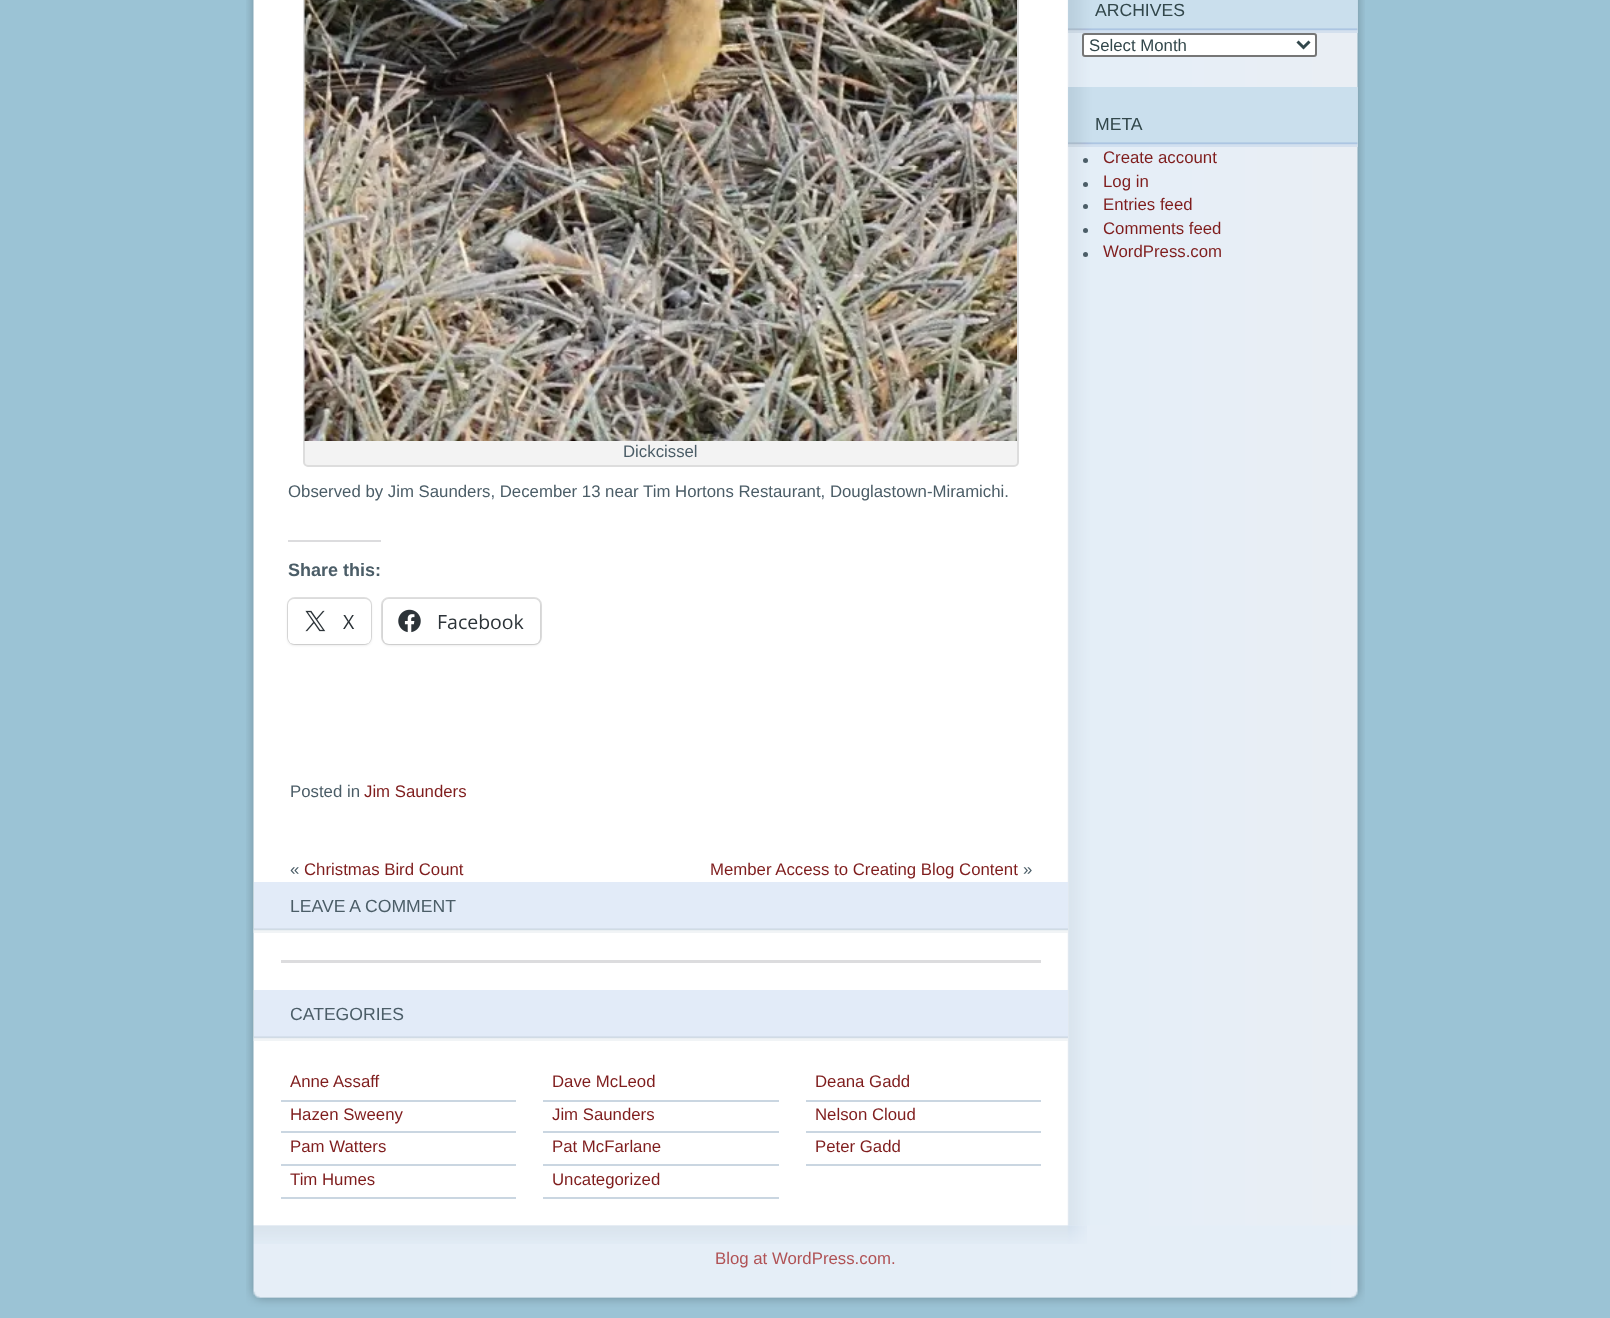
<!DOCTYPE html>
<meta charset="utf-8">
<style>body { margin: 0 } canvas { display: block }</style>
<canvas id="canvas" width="1610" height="1318"></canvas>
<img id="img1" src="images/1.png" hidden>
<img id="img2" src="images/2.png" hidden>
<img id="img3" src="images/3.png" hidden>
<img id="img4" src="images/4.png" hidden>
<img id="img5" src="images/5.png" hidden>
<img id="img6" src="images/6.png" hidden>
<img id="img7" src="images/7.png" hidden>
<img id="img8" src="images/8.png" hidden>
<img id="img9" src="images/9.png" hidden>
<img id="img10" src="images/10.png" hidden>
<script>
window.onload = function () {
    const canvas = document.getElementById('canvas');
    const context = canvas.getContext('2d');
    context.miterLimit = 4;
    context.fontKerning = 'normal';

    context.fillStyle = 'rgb(155, 195, 213)';
    context.fillRect(0, 0, 1610, 1318);
    context.drawImage(document.getElementById('img1'), 246, 0, 1119, 1226);
    context.fillStyle = 'rgb(202, 223, 237)';
    context.fillRect(1357, 0, 1, 33);
    context.drawImage(document.getElementById('img2'), 1068, 0, 290, 33);
    context.fillStyle = 'rgb(255, 255, 255)';
    context.beginPath();
    context.roundRect(1083, 34, 233, 22, 2);
    context.fill();
    context.strokeStyle = 'rgb(118, 118, 118)';
    context.lineWidth = 2;
    context.stroke();
    context.beginPath();
    context.moveTo(1297.5, 41.5);
    context.lineTo(1303.5, 47.5);
    context.lineTo(1309.5, 41.5);
    context.strokeStyle = 'rgb(50, 71, 75)';
    context.lineWidth = 3;
    context.stroke();
    context.fillStyle = 'rgb(202, 223, 237)';
    context.fillRect(1357, 87, 1, 60);
    context.drawImage(document.getElementById('img3'), 1068, 87, 290, 60);
    context.fillStyle = 'rgb(75, 93, 103)';
    context.beginPath();
    context.arc(1085.5, 160.5, 2.5, 0, 2 * Math.PI);
    context.fill();
    context.beginPath();
    context.arc(1085.5, 184.5, 2.5, 0, 2 * Math.PI);
    context.fill();
    context.beginPath();
    context.arc(1085.5, 206.5, 2.5, 0, 2 * Math.PI);
    context.fill();
    context.beginPath();
    context.arc(1085.5, 230.5, 2.5, 0, 2 * Math.PI);
    context.fill();
    context.beginPath();
    context.arc(1085.5, 254.5, 2.5, 0, 2 * Math.PI);
    context.fill();
    context.fillStyle = 'rgb(243, 243, 243)';
    context.beginPath();
    context.roundRect(304, -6, 714, 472, 4);
    context.fill();
    context.strokeStyle = 'rgb(221, 221, 221)';
    context.lineWidth = 2;
    context.stroke();
    context.drawImage(document.getElementById('img4'), 304, 0, 713, 441);
    context.fillStyle = 'rgb(220, 220, 222)';
    context.fillRect(288, 540, 93, 2);
    context.beginPath();
    context.roundRect(288, 598, 83, 46, 7);
    context.strokeStyle = 'rgb(224, 224, 224)';
    context.stroke();
    context.fillStyle = 'rgba(0, 0, 0, 0.12)';
    context.filter = 'blur(1.5px)';
    context.beginPath();
    context.roundRect(288, 600, 83, 45, 6);
    context.fill();
    context.filter = 'none';
    context.fillStyle = 'rgb(255, 255, 255)';
    context.beginPath();
    context.roundRect(288, 599, 83, 45, 6);
    context.fill();
    context.drawImage(document.getElementById('img5'), 305, 610, 21, 22);
    context.beginPath();
    context.roundRect(382, 598, 159, 46, 7);
    context.stroke();
    context.fillStyle = 'rgba(0, 0, 0, 0.12)';
    context.filter = 'blur(1.5px)';
    context.beginPath();
    context.roundRect(383, 600, 157, 45, 6);
    context.fill();
    context.filter = 'none';
    context.fillStyle = 'rgb(255, 255, 255)';
    context.beginPath();
    context.roundRect(383, 599, 157, 45, 6);
    context.fill();
    context.drawImage(document.getElementById('img6'), 398, 609, 23, 24);
    context.fillStyle = 'rgb(226, 235, 248)';
    context.fillRect(254, 882, 814, 47);
    context.drawImage(document.getElementById('img7'), 253, 928, 815, 5);
    context.fillStyle = 'rgb(220, 220, 222)';
    context.fillRect(281, 960, 760, 3);
    context.fillStyle = 'rgb(226, 235, 248)';
    context.fillRect(254, 990, 814, 47);
    context.drawImage(document.getElementById('img8'), 253, 1036, 815, 5);
    context.fillStyle = 'rgb(202, 214, 225)';
    context.fillRect(281, 1100, 235, 2);
    context.fillRect(543, 1100, 236, 2);
    context.fillRect(806, 1100, 235, 2);
    context.fillRect(281, 1131, 235, 2);
    context.fillRect(543, 1131, 236, 2);
    context.fillRect(806, 1131, 235, 2);
    context.fillRect(281, 1164, 235, 2);
    context.fillRect(543, 1164, 236, 2);
    context.fillRect(806, 1164, 235, 2);
    context.fillRect(281, 1197, 235, 2);
    context.fillRect(543, 1197, 236, 2);
    context.drawImage(document.getElementById('img9'), 246, 1225, 1119, 83);
    context.drawImage(document.getElementById('img10'), 253, 1225, 834, 19);
    context.font = '17.6px Liberation Sans';
    context.fillStyle = 'rgb(50, 71, 75)';
    context.fillText('ARCHIVES', 1095, 16);
    context.font = '16.8px Liberation Sans';
    context.fillText('Select Month', 1089, 51);
    context.font = '17.6px Liberation Sans';
    context.fillText('META', 1095, 130);
    context.font = '16.8px Liberation Sans';
    context.fillStyle = 'rgb(127, 29, 29)';
    context.fillText('Create account', 1103, 163);
    context.fillText('Log in', 1103, 187);
    context.fillText('Entries feed', 1103, 210);
    context.fillText('Comments feed', 1103, 234);
    context.fillText('WordPress.com', 1103, 257);
    context.fillStyle = 'rgb(75, 93, 103)';
    context.fillText('Dickcissel', 623, 457);
    context.fillText('Observed by Jim Saunders, December 13 near Tim Hortons Restaurant, Douglastown-Miramichi.', 288, 497);
    context.font = 'bold 18px Liberation Sans';
    context.fillText('Share this:', 288, 576);
    context.font = '19.5px Open Sans';
    context.fillStyle = 'rgb(44, 51, 56)';
    context.fillText('X', 343, 629);
    context.fillText('Facebook', 437, 629);
    context.font = '16.8px Liberation Sans';
    context.fillStyle = 'rgb(75, 93, 103)';
    context.fillText('Posted in', 290, 797);
    context.fillStyle = 'rgb(127, 29, 29)';
    context.fillText('Jim Saunders', 364, 797);
    context.fillStyle = 'rgb(75, 93, 103)';
    context.fillText('«', 290, 875);
    context.fillStyle = 'rgb(127, 29, 29)';
    context.fillText('Christmas Bird Count', 304, 875);
    context.fillText('Member Access to Creating Blog Content', 710, 875);
    context.fillStyle = 'rgb(75, 93, 103)';
    context.fillText('»', 1023, 875);
    context.font = '17.6px Liberation Sans';
    context.fillText('LEAVE A COMMENT', 290, 912);
    context.fillText('CATEGORIES', 290, 1020);
    context.font = '16.8px Liberation Sans';
    context.fillStyle = 'rgb(127, 29, 29)';
    context.fillText('Anne Assaff', 290, 1087);
    context.fillText('Dave McLeod', 552, 1087);
    context.fillText('Deana Gadd', 815, 1087);
    context.fillText('Hazen Sweeny', 290, 1120);
    context.fillText('Jim Saunders', 552, 1120);
    context.fillText('Nelson Cloud', 815, 1120);
    context.fillText('Pam Watters', 290, 1152);
    context.fillText('Pat McFarlane', 552, 1152);
    context.fillText('Peter Gadd', 815, 1152);
    context.fillText('Tim Humes', 290, 1185);
    context.fillText('Uncategorized', 552, 1185);
    context.fillStyle = 'rgb(176, 82, 85)';
    context.fillText('Blog at WordPress.com.', 715, 1264);
};
</script>
